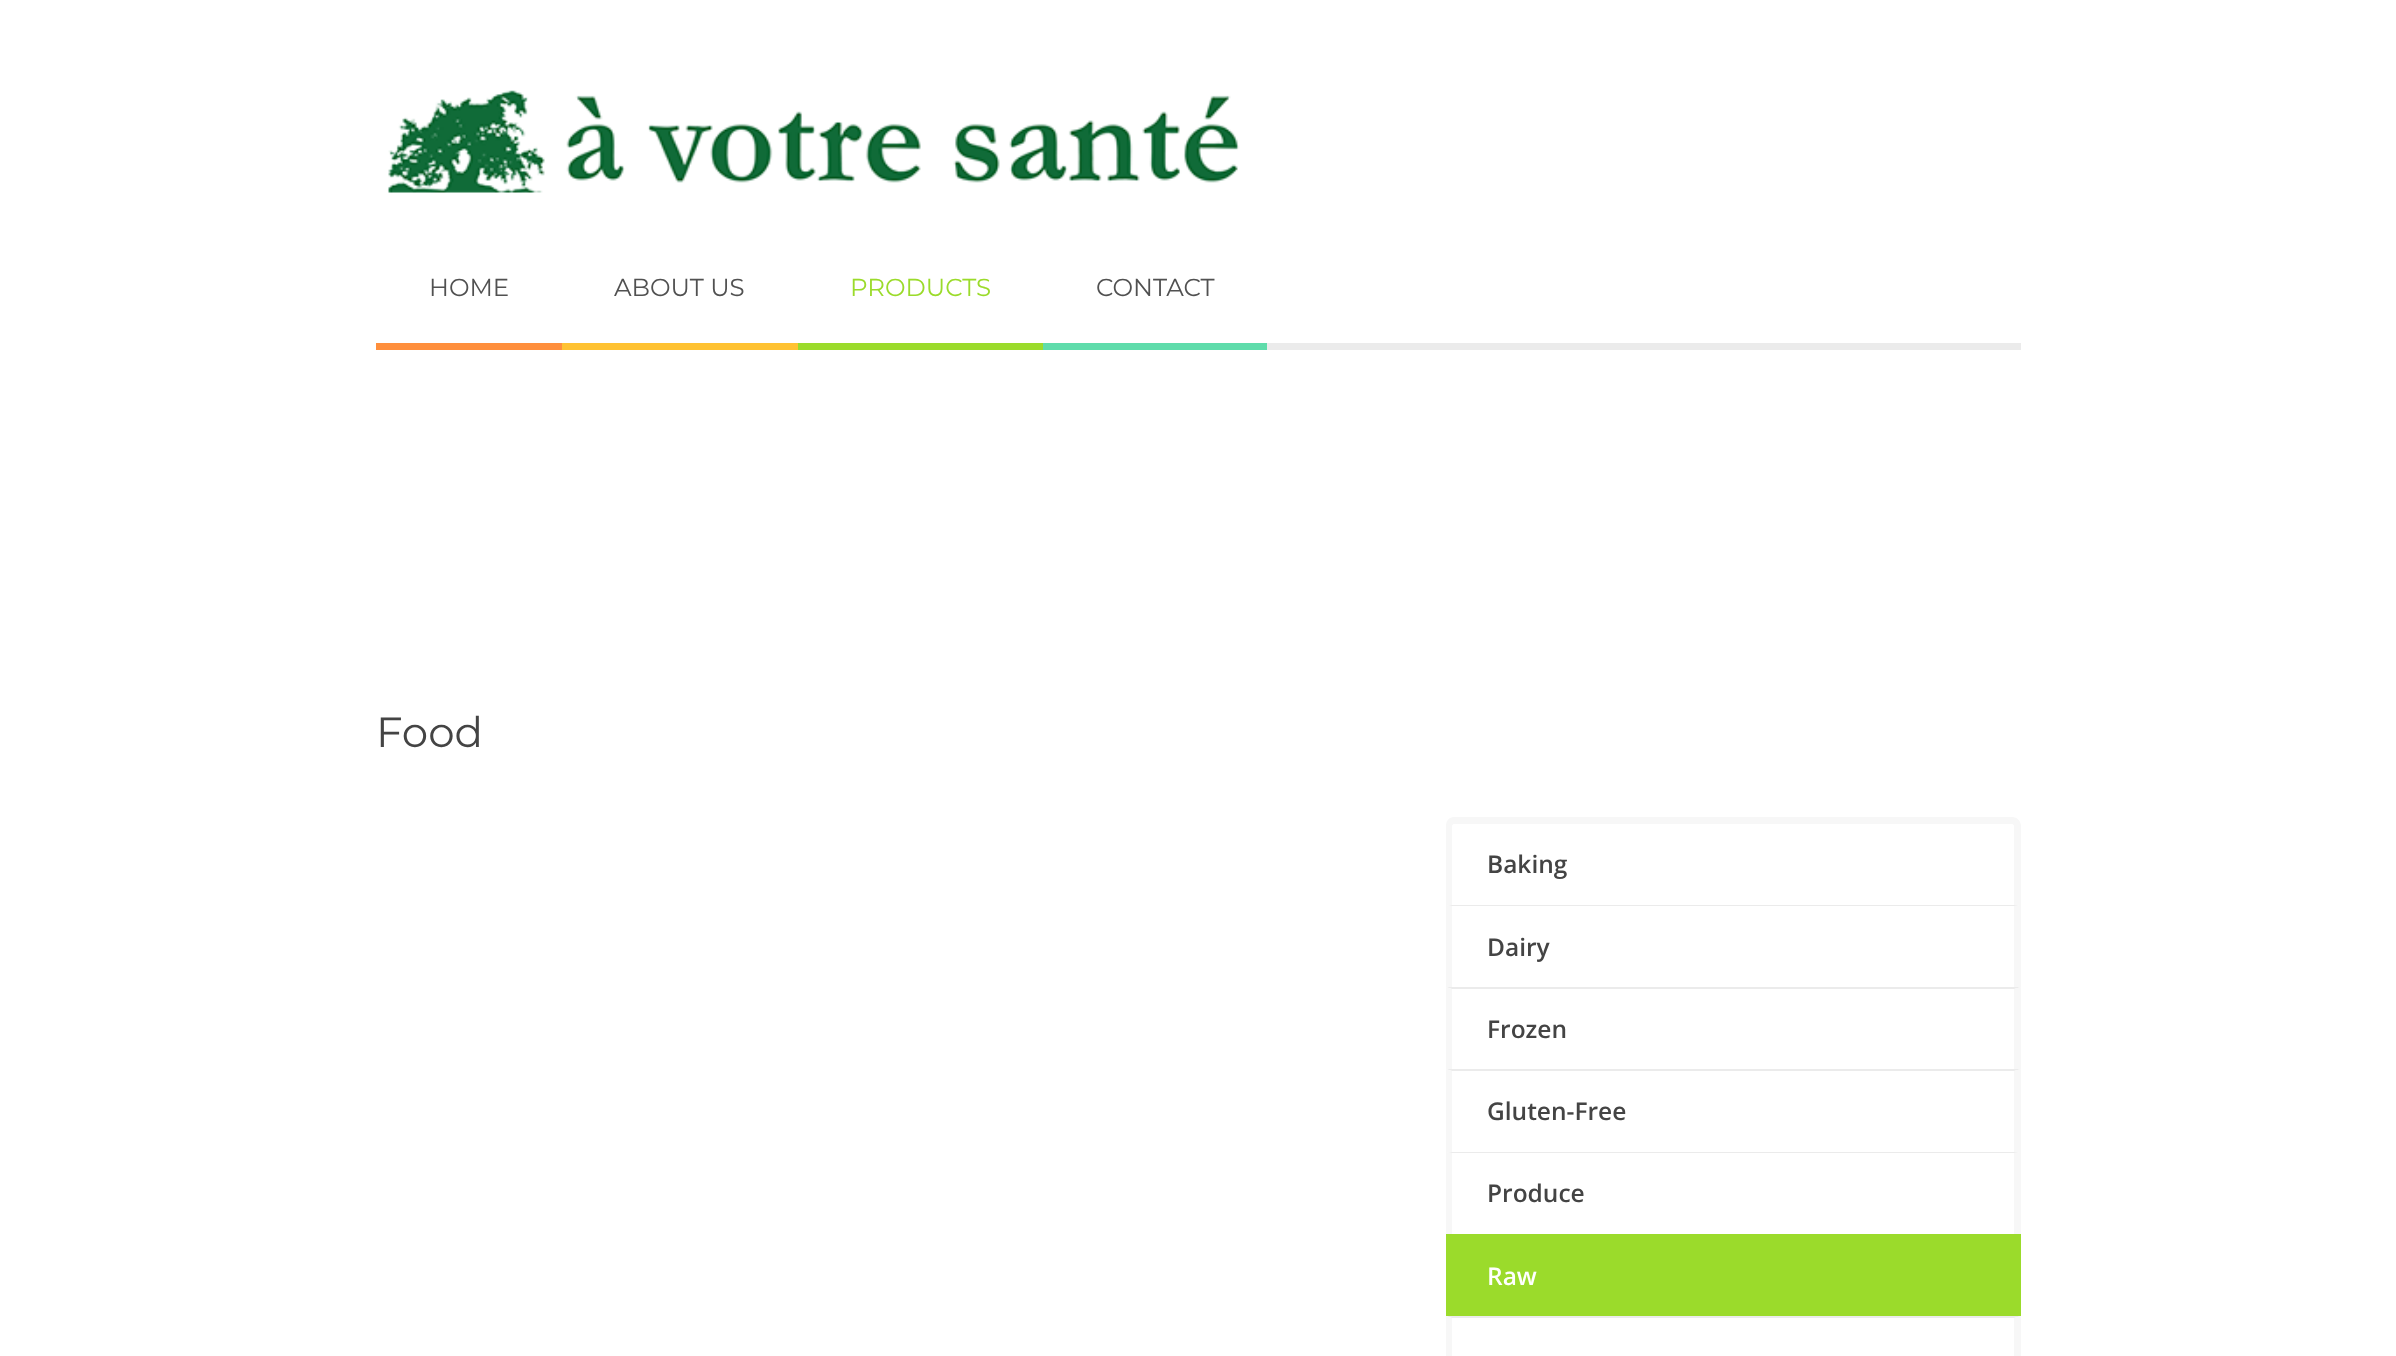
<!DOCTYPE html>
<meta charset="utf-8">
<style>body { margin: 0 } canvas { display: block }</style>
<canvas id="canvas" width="2396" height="1356"></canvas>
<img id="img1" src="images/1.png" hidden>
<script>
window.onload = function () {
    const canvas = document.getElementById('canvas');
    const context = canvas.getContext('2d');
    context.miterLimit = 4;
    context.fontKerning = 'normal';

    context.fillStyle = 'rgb(255, 255, 255)';
    context.fillRect(0, 0, 2396, 1356);
    context.drawImage(document.getElementById('img1'), 387, 90, 853, 103);
    context.fillStyle = 'rgb(235, 235, 235)';
    context.fillRect(1267, 343, 754, 7);
    context.fillStyle = 'rgb(255, 143, 60)';
    context.fillRect(376, 343, 186, 7);
    context.fillStyle = 'rgb(255, 194, 50)';
    context.fillRect(562, 343, 236, 7);
    context.fillStyle = 'rgb(155, 219, 43)';
    context.fillRect(798, 343, 245, 7);
    context.fillStyle = 'rgb(95, 220, 171)';
    context.fillRect(1043, 343, 224, 7);
    context.fillStyle = 'rgb(247, 247, 247)';
    context.beginPath();
    context.moveTo(1454, 817);
    context.lineTo(2012, 817);
    context.bezierCurveTo(2017, 817, 2021, 821, 2021, 826);
    context.lineTo(2021, 905);
    context.lineTo(1446, 905);
    context.lineTo(1446, 826);
    context.bezierCurveTo(1446, 821, 1449, 817, 1454, 817);
    context.closePath();
    context.moveTo(1454, 824);
    context.lineTo(2012, 824);
    context.bezierCurveTo(2013, 824, 2014, 825, 2014, 826);
    context.lineTo(2014, 905);
    context.lineTo(1452, 905);
    context.lineTo(1452, 826);
    context.bezierCurveTo(1452, 825, 1453, 824, 1454, 824);
    context.closePath();
    context.fill('evenodd');
    context.fillStyle = 'rgb(235, 235, 235)';
    context.beginPath();
    context.moveTo(1446, 905);
    context.lineTo(2021, 905);
    context.lineTo(2014, 906);
    context.lineTo(1452, 906);
    context.closePath();
    context.fill();
    context.fillStyle = 'rgb(247, 247, 247)';
    context.beginPath();
    context.moveTo(2021, 905);
    context.lineTo(2021, 987);
    context.lineTo(2014, 987);
    context.lineTo(2014, 906);
    context.closePath();
    context.fill();
    context.beginPath();
    context.moveTo(1446, 987);
    context.lineTo(1446, 905);
    context.lineTo(1452, 906);
    context.lineTo(1452, 987);
    context.closePath();
    context.fill();
    context.fillStyle = 'rgb(235, 235, 235)';
    context.beginPath();
    context.moveTo(1446, 987);
    context.lineTo(2021, 987);
    context.lineTo(2014, 989);
    context.lineTo(1452, 989);
    context.closePath();
    context.fill();
    context.fillStyle = 'rgb(247, 247, 247)';
    context.beginPath();
    context.moveTo(2021, 987);
    context.lineTo(2021, 1069);
    context.lineTo(2014, 1069);
    context.lineTo(2014, 989);
    context.closePath();
    context.fill();
    context.beginPath();
    context.moveTo(1446, 1069);
    context.lineTo(1446, 987);
    context.lineTo(1452, 989);
    context.lineTo(1452, 1069);
    context.closePath();
    context.fill();
    context.fillStyle = 'rgb(235, 235, 235)';
    context.beginPath();
    context.moveTo(1446, 1069);
    context.lineTo(2021, 1069);
    context.lineTo(2014, 1071);
    context.lineTo(1452, 1071);
    context.closePath();
    context.fill();
    context.fillStyle = 'rgb(247, 247, 247)';
    context.beginPath();
    context.moveTo(2021, 1069);
    context.lineTo(2021, 1152);
    context.lineTo(2014, 1152);
    context.lineTo(2014, 1071);
    context.closePath();
    context.fill();
    context.beginPath();
    context.moveTo(1446, 1152);
    context.lineTo(1446, 1069);
    context.lineTo(1452, 1071);
    context.lineTo(1452, 1152);
    context.closePath();
    context.fill();
    context.fillStyle = 'rgb(235, 235, 235)';
    context.beginPath();
    context.moveTo(1446, 1152);
    context.lineTo(2021, 1152);
    context.lineTo(2014, 1153);
    context.lineTo(1452, 1153);
    context.closePath();
    context.fill();
    context.fillStyle = 'rgb(247, 247, 247)';
    context.beginPath();
    context.moveTo(2021, 1152);
    context.lineTo(2021, 1234);
    context.lineTo(2014, 1234);
    context.lineTo(2014, 1153);
    context.closePath();
    context.fill();
    context.beginPath();
    context.moveTo(1446, 1234);
    context.lineTo(1446, 1152);
    context.lineTo(1452, 1153);
    context.lineTo(1452, 1234);
    context.closePath();
    context.fill();
    context.fillStyle = 'rgb(155, 219, 43)';
    context.fillRect(1446, 1234, 575, 82);
    context.fillStyle = 'rgb(235, 235, 235)';
    context.beginPath();
    context.moveTo(1446, 1316);
    context.lineTo(2021, 1316);
    context.lineTo(2014, 1318);
    context.lineTo(1452, 1318);
    context.closePath();
    context.fill();
    context.fillStyle = 'rgb(247, 247, 247)';
    context.beginPath();
    context.moveTo(2021, 1316);
    context.lineTo(2021, 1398);
    context.lineTo(2014, 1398);
    context.lineTo(2014, 1318);
    context.closePath();
    context.fill();
    context.beginPath();
    context.moveTo(1446, 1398);
    context.lineTo(1446, 1316);
    context.lineTo(1452, 1318);
    context.lineTo(1452, 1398);
    context.closePath();
    context.fill();
    context.font = '24.5px Montserrat';
    context.fillStyle = 'rgb(81, 81, 81)';
    context.fillText('HOME', 429, 296);
    context.fillText('ABOUT US', 614, 296);
    context.fillStyle = 'rgb(155, 219, 43)';
    context.fillText('PRODUCTS', 850, 296);
    context.fillStyle = 'rgb(81, 81, 81)';
    context.fillText('CONTACT', 1096, 296);
    context.font = '42px Montserrat';
    context.fillStyle = 'rgb(68, 68, 68)';
    context.fillText('Food', 376, 747);
    context.font = '600 24.5px Open Sans';
    context.fillText('Baking', 1487, 873);
    context.fillText('Dairy', 1487, 956);
    context.fillText('Frozen', 1487, 1038);
    context.fillText('Gluten-Free', 1487, 1120);
    context.fillText('Produce', 1487, 1202);
    context.fillStyle = 'rgb(255, 255, 255)';
    context.fillText('Raw', 1487, 1285);
};
</script>
